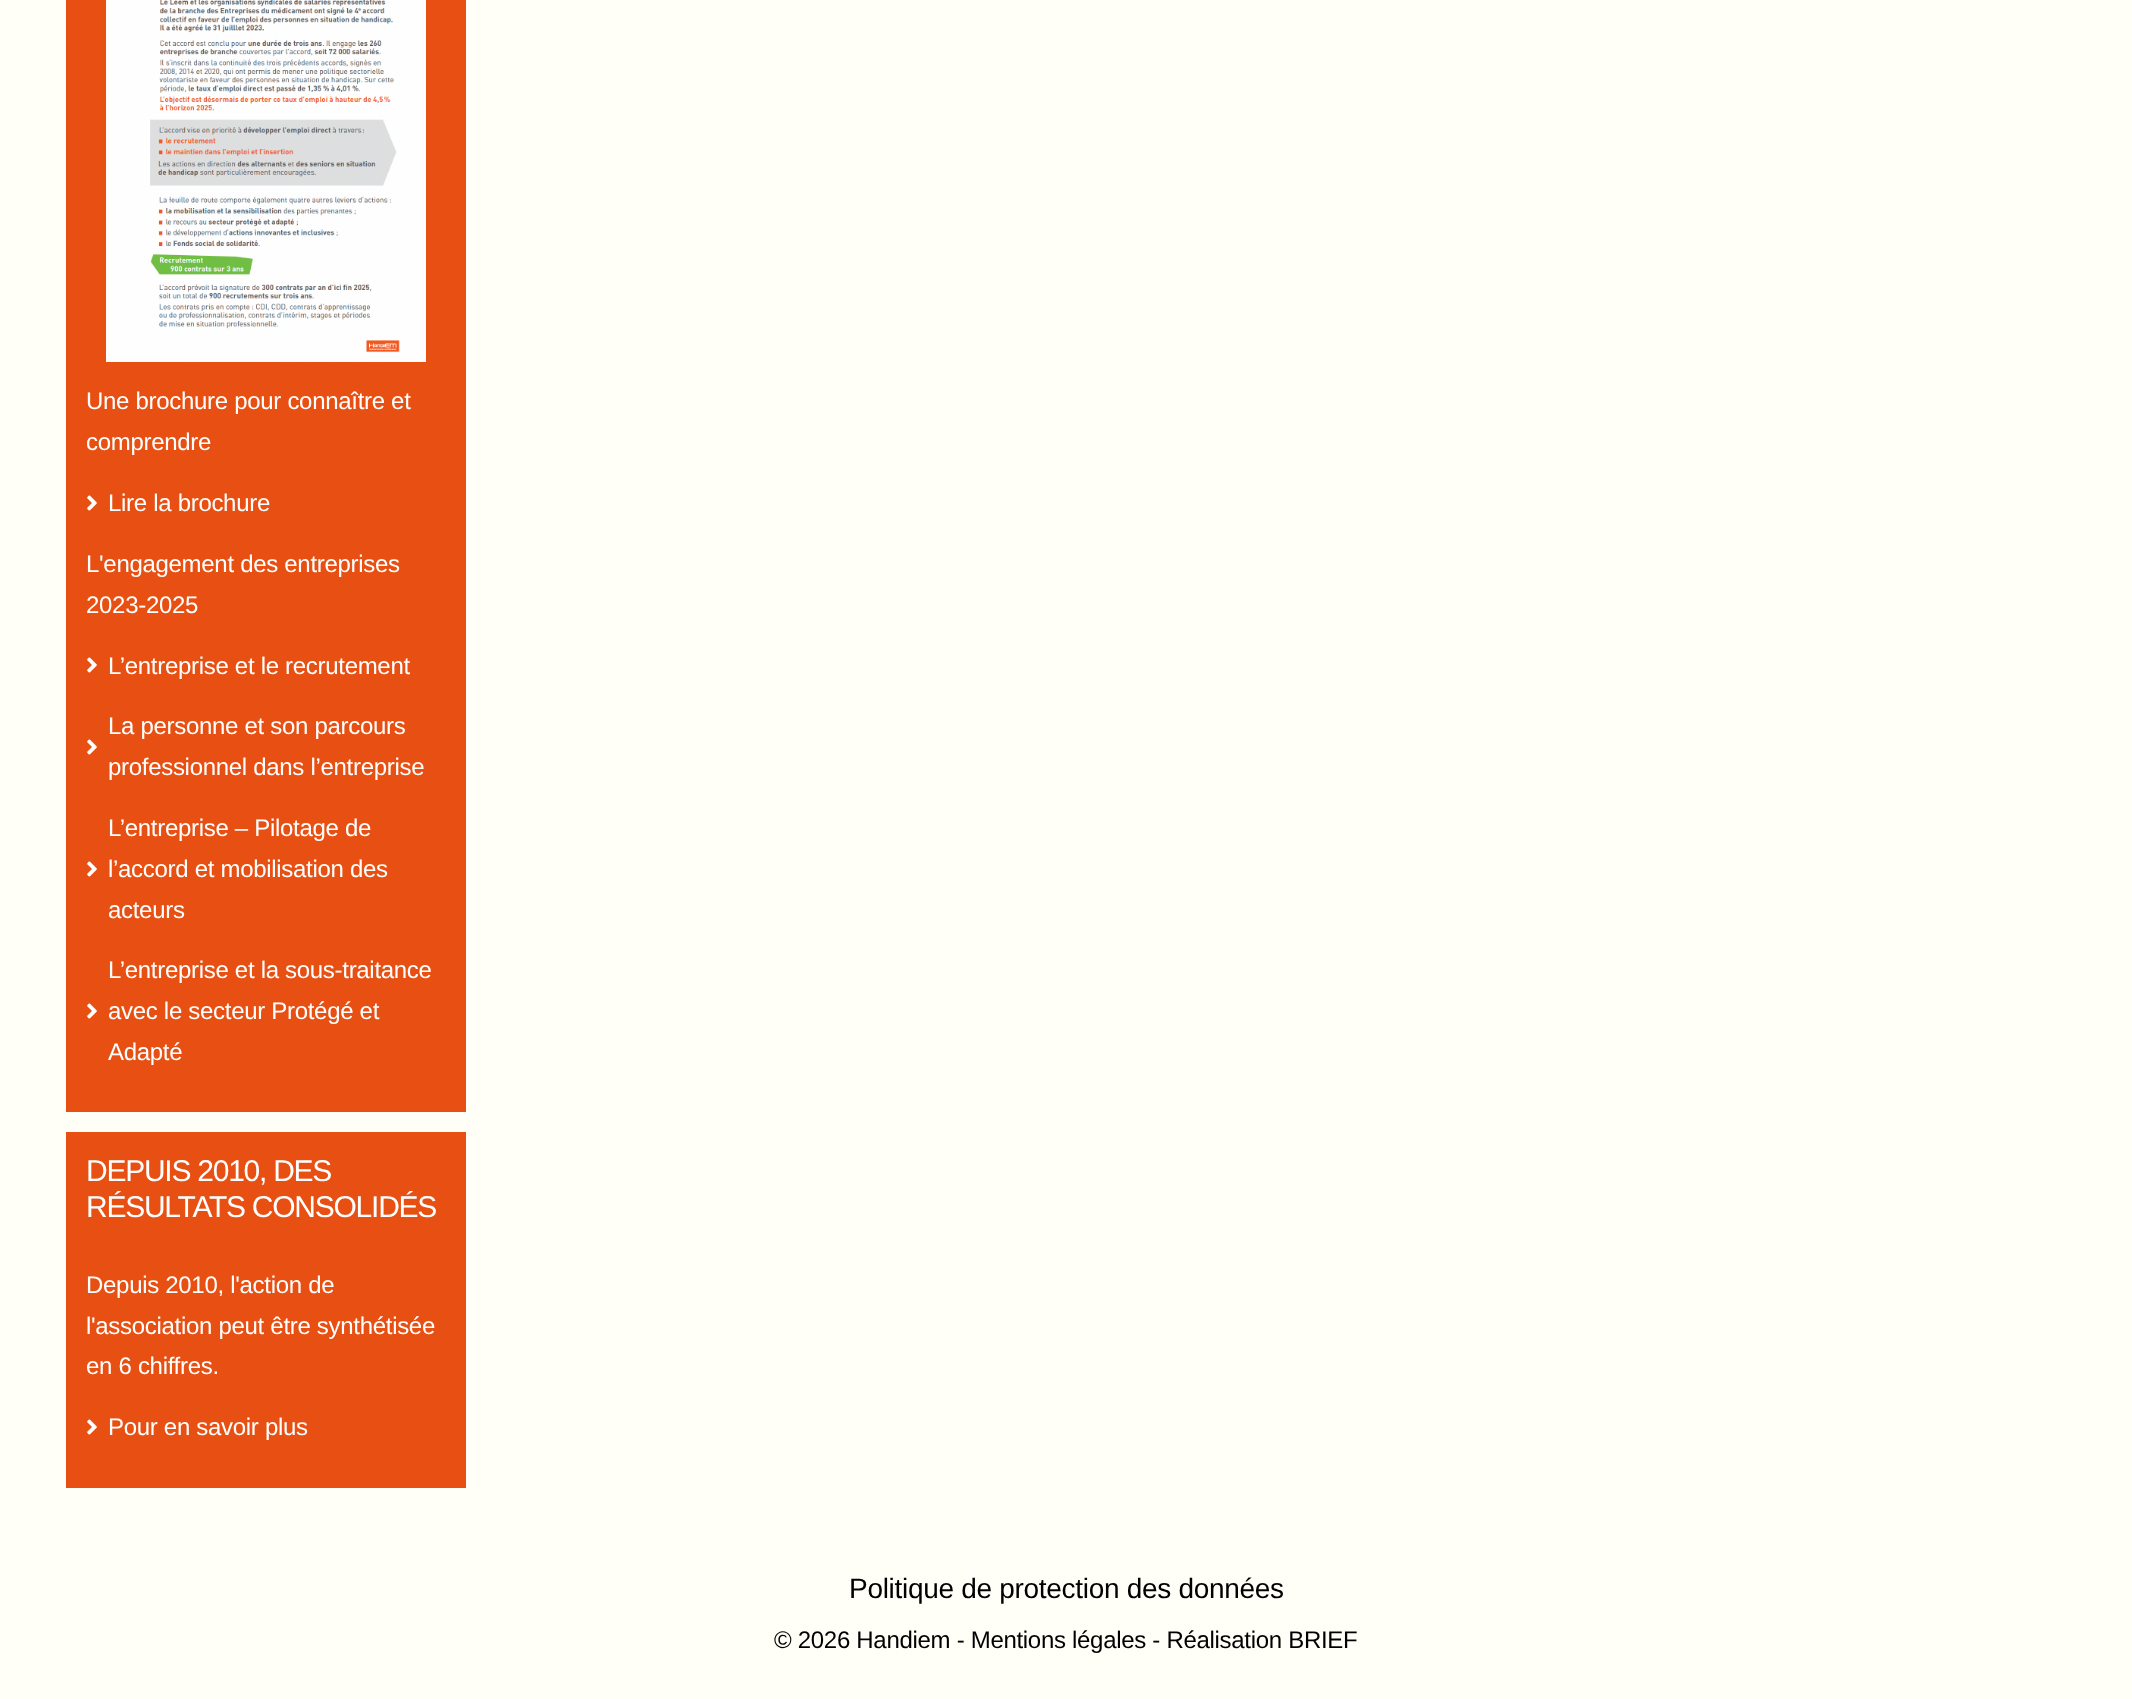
<!DOCTYPE html>
<meta charset="utf-8">
<style>body { margin: 0 } canvas { display: block }</style>
<canvas id="canvas" width="2132" height="1699"></canvas>
<img id="img1" src="images/1.png" hidden>
<img id="img2" src="images/2.png" hidden>
<script>
window.onload = function () {
    const canvas = document.getElementById('canvas');
    const context = canvas.getContext('2d');
    context.miterLimit = 4;
    context.fontKerning = 'normal';

    context.fillStyle = 'rgb(255, 254, 247)';
    context.fillRect(0, 0, 2132, 1699);
    context.fillStyle = 'rgb(231, 80, 18)';
    context.fillRect(66, 0, 400, 1112);
    context.drawImage(document.getElementById('img1'), 106, 0, 320, 362);
    context.drawImage(document.getElementById('img2'), 87, 495, 10, 16);
    context.drawImage(document.getElementById('img2'), 87, 657, 10, 16);
    context.drawImage(document.getElementById('img2'), 87, 739, 10, 16);
    context.drawImage(document.getElementById('img2'), 87, 861, 10, 16);
    context.drawImage(document.getElementById('img2'), 87, 1003, 10, 16);
    context.fillRect(66, 1132, 400, 356);
    context.drawImage(document.getElementById('img2'), 87, 1419, 10, 16);
    context.letterSpacing = '-0.3px';
    context.font = '24px Liberation Sans';
    context.fillStyle = 'rgb(255, 255, 255)';
    context.fillText('Une brochure pour connaître et', 86, 409);
    context.fillText('comprendre', 86, 450);
    context.fillText('Lire la brochure', 108, 511);
    context.fillText('L\'engagement des entreprises', 86, 572);
    context.fillText('2023-2025', 86, 613);
    context.fillText('L’entreprise et le recrutement', 108, 674);
    context.fillText('La personne et son parcours', 108, 734);
    context.fillText('professionnel dans l’entreprise', 108, 775);
    context.fillText('L’entreprise – Pilotage de', 108, 836);
    context.fillText('l’accord et mobilisation des', 108, 877);
    context.fillText('acteurs', 108, 918);
    context.fillText('L’entreprise et la sous-traitance', 108, 978);
    context.fillText('avec le secteur Protégé et', 108, 1019);
    context.fillText('Adapté', 108, 1060);
    context.letterSpacing = '-1.25px';
    context.font = '30px Liberation Sans';
    context.fillText('DEPUIS 2010, DES', 86, 1181);
    context.fillText('RÉSULTATS CONSOLIDÉS', 86, 1217);
    context.letterSpacing = '-0.3px';
    context.font = '24px Liberation Sans';
    context.fillText('Depuis 2010, l\'action de', 86, 1293);
    context.fillText('l\'association peut être synthétisée', 86, 1334);
    context.fillText('en 6 chiffres.', 86, 1374);
    context.fillText('Pour en savoir plus', 108, 1435);
    context.font = '28px Liberation Sans';
    context.fillStyle = 'rgb(0, 0, 0)';
    context.fillText('Politique de protection des données', 849, 1598);
    context.font = '24px Liberation Sans';
    context.fillText('© 2026 Handiem - Mentions légales - Réalisation BRIEF', 774, 1648);
};
</script>
